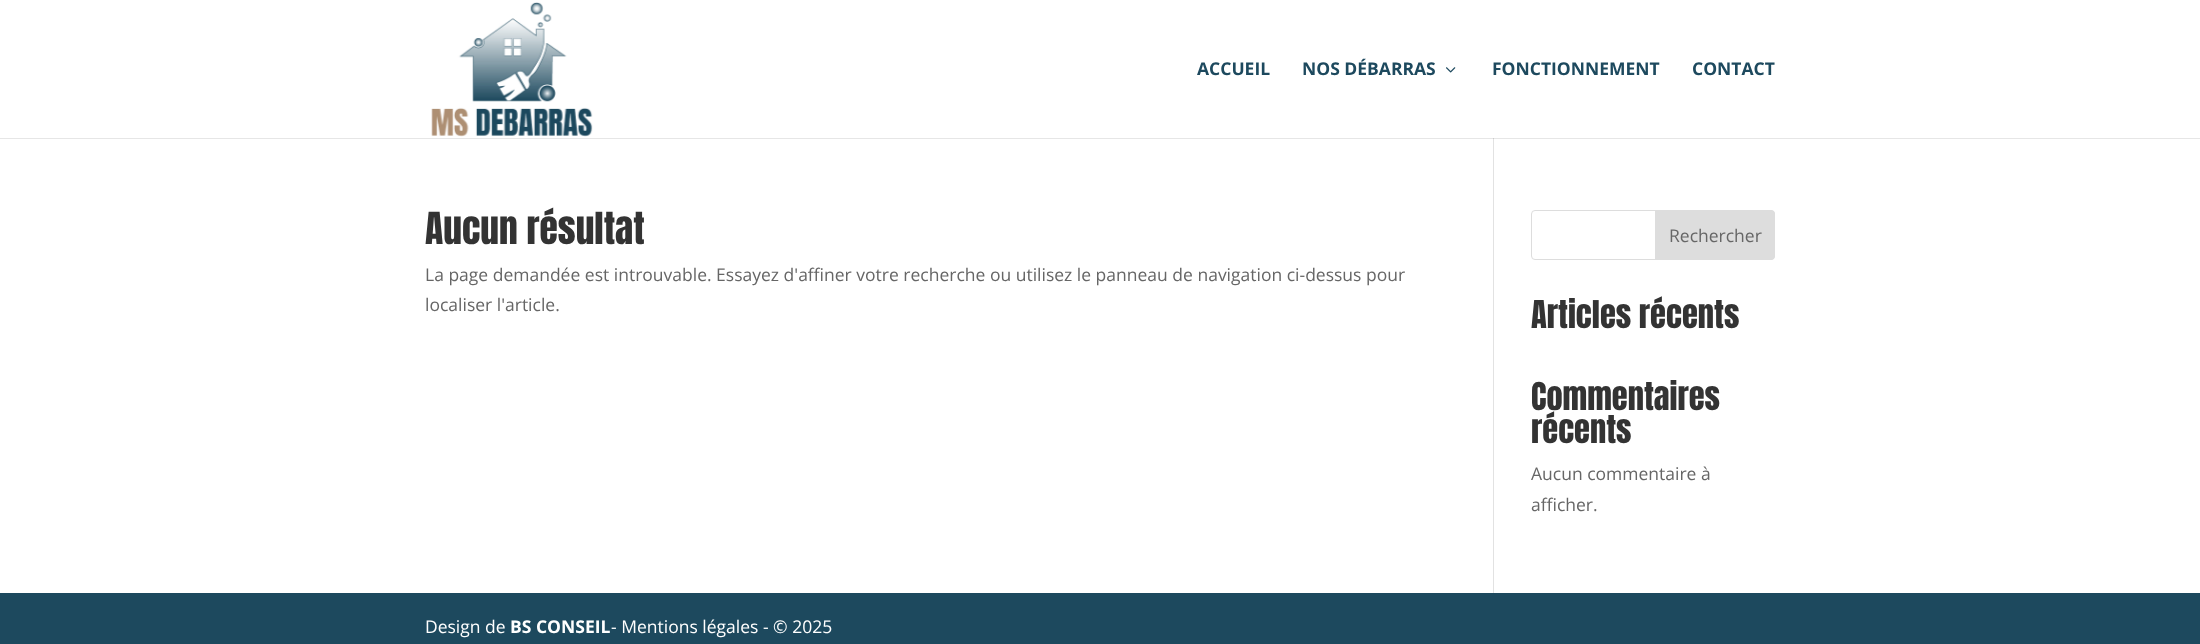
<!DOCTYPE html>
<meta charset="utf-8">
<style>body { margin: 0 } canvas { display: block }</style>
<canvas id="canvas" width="2200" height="644"></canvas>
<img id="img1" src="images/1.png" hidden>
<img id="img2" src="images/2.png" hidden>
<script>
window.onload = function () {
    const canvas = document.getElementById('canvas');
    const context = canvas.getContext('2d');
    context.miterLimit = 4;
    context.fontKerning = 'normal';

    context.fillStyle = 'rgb(255, 255, 255)';
    context.fillRect(0, 0, 2200, 644);
    context.fillStyle = 'rgb(230, 230, 230)';
    context.fillRect(0, 138, 2200, 1);
    context.drawImage(document.getElementById('img1'), 431, 2, 162, 135);
    context.drawImage(document.getElementById('img2'), 1446, 67, 10, 6);
    context.fillStyle = 'rgb(226, 226, 226)';
    context.fillRect(1493, 138, 1, 455);
    context.fillStyle = 'rgb(203, 203, 203)';
    context.fillRect(1493, 138, 1, 1);
    context.beginPath();
    context.roundRect(1531.5, 210.5, 243, 49, 3.5);
    context.strokeStyle = 'rgb(221, 221, 221)';
    context.stroke();
    context.fillStyle = 'rgb(221, 221, 221)';
    context.beginPath();
    context.roundRect(1655.5, 210.5, 119, 49, [0, 3.5, 3.5, 0]);
    context.fill();
    context.stroke();
    context.fillStyle = 'rgb(29, 73, 94)';
    context.fillRect(0, 593, 2200, 51);
    context.font = 'bold 17.5px Open Sans';
    context.fillText('ACCUEIL', 1197, 75);
    context.fillText('NOS DÉBARRAS', 1302, 75);
    context.fillText('FONCTIONNEMENT', 1492, 75);
    context.fillText('CONTACT', 1692, 75);
    context.font = '37.5px Anton';
    context.fillStyle = 'rgb(51, 51, 51)';
    context.fillText('Aucun résultat', 425, 244);
    context.font = '17.5px Open Sans';
    context.fillStyle = 'rgb(102, 102, 102)';
    context.fillText('La page demandée est introuvable. Essayez d\'affiner votre recherche ou utilisez le panneau de navigation ci-dessus pour', 425, 281);
    context.fillText('localiser l\'article.', 425, 311);
    context.fillText('Rechercher', 1669, 242);
    context.font = '32.5px Anton';
    context.fillStyle = 'rgb(51, 51, 51)';
    context.fillText('Articles récents', 1531, 328);
    context.fillText('Commentaires', 1531, 410);
    context.fillText('récents', 1531, 443);
    context.font = '17.5px Open Sans';
    context.fillStyle = 'rgb(102, 102, 102)';
    context.fillText('Aucun commentaire à', 1531, 480);
    context.fillText('afficher.', 1531, 511);
    context.fillStyle = 'rgb(255, 255, 255)';
    context.fillText('Design de', 425, 633);
    context.font = 'bold 17.5px Open Sans';
    context.fillText('BS CONSEIL', 510, 633);
    context.font = '17.5px Open Sans';
    context.fillText('- Mentions légales - © 2025', 611, 633);
};
</script>
